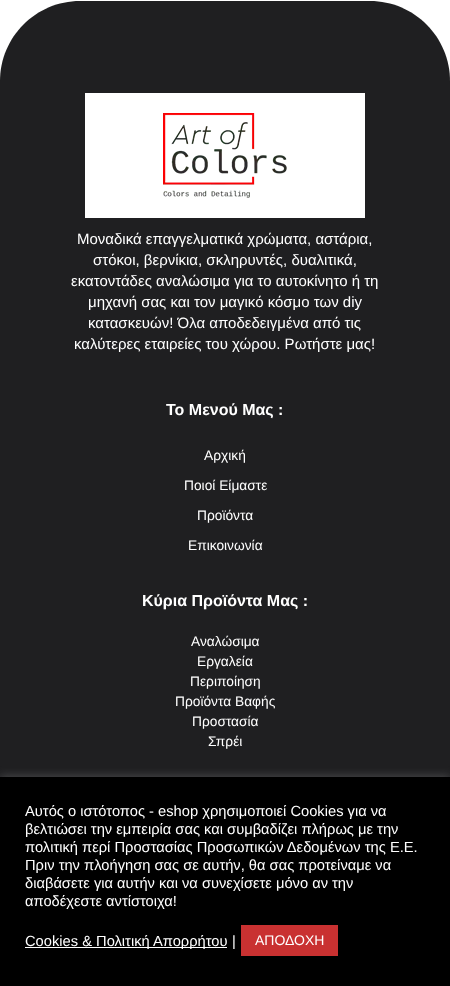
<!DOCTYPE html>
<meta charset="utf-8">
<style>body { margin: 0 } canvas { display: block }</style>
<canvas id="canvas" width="450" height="986"></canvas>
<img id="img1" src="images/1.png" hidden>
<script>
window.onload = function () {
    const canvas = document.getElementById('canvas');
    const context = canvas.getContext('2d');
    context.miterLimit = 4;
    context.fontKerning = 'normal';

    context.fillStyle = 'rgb(255, 255, 255)';
    context.fillRect(0, 0, 450, 986);
    context.fillStyle = 'rgb(31, 31, 33)';
    context.beginPath();
    context.moveTo(80, 1);
    context.lineTo(370, 1);
    context.bezierCurveTo(414, 1, 450, 37, 450, 81);
    context.lineTo(450, 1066);
    context.lineTo(0, 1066);
    context.lineTo(0, 81);
    context.bezierCurveTo(0, 37, 36, 1, 80, 1);
    context.closePath();
    context.fill();
    context.fillStyle = 'rgb(255, 255, 255)';
    context.fillRect(85, 93, 280, 125);
    context.drawImage(document.getElementById('img1'), 163, 113, 124, 85);
    context.fillStyle = 'rgba(172, 171, 171, 0.3)';
    context.filter = 'blur(5px)';
    context.beginPath();
    context.rect(0, 776, 450, 209);
    context.fill();
    context.filter = 'none';
    context.fillStyle = 'rgb(0, 0, 0)';
    context.fillRect(0, 777, 450, 209);
    context.fillStyle = 'rgb(255, 255, 255)';
    context.fillRect(25, 947, 202, 1);
    context.fillStyle = 'rgb(201, 49, 49)';
    context.fillRect(241, 925, 97, 31);
    context.font = '15px Liberation Sans';
    context.fillStyle = 'rgb(255, 255, 255)';
    context.fillText('Μοναδικά επαγγελματικά χρώματα, αστάρια,', 77, 244);
    context.fillText('στόκοι, βερνίκια, σκληρυντές, δυαλιτικά,', 93, 265);
    context.fillText('εκατοντάδες αναλώσιμα για το αυτοκίνητο ή τη', 71, 286);
    context.fillText('μηχανή σας και τον μαγικό κόσμο των diy', 88, 307);
    context.fillText('κατασκευών! Όλα αποδεδειγμένα από τις', 88, 328);
    context.fillText('καλύτερες εταιρείες του χώρου. Ρωτήστε μας!', 74, 349);
    context.font = 'bold 16px Liberation Sans';
    context.fillText('Το Μενού Μας :', 166, 415);
    context.font = '13.75px Liberation Sans';
    context.fillText('Αρχική', 204, 460);
    context.fillText('Ποιοί Είμαστε', 184, 490);
    context.fillText('Προϊόντα', 197, 520);
    context.fillText('Επικοινωνία', 188, 550);
    context.font = 'bold 16px Liberation Sans';
    context.fillText('Κύρια Προϊόντα Μας :', 142, 606);
    context.font = '13.75px Liberation Sans';
    context.fillText('Αναλώσιμα', 191, 646);
    context.fillText('Εργαλεία', 197, 666);
    context.fillText('Περιποίηση', 190, 686);
    context.fillText('Προϊόντα Βαφής', 175, 706);
    context.fillText('Προστασία', 192, 726);
    context.fillText('Σπρέι', 208, 746);
    context.font = '14.7px Liberation Sans';
    context.fillText('Αυτός ο ιστότοπος - eshop χρησιμοποιεί Cookies για να', 25, 816);
    context.fillText('βελτιώσει την εμπειρία σας και συμβαδίζει πλήρως με την', 25, 834);
    context.fillText('πολιτική περί Προστασίας Προσωπικών Δεδομένων της Ε.Ε.', 25, 852);
    context.fillText('Πριν την πλοήγηση σας σε αυτήν, θα σας προτείναμε να', 25, 870);
    context.fillText('διαβάσετε για αυτήν και να συνεχίσετε μόνο αν την', 25, 888);
    context.fillText('αποδέχεστε αντίστοιχα!', 25, 906);
    context.fillText('Cookies & Πολιτική Απορρήτου', 25, 946);
    context.fillText('|', 232, 946);
    context.font = '14px Liberation Sans';
    context.fillText('ΑΠΟΔΟΧΗ', 255, 945);
};
</script>
